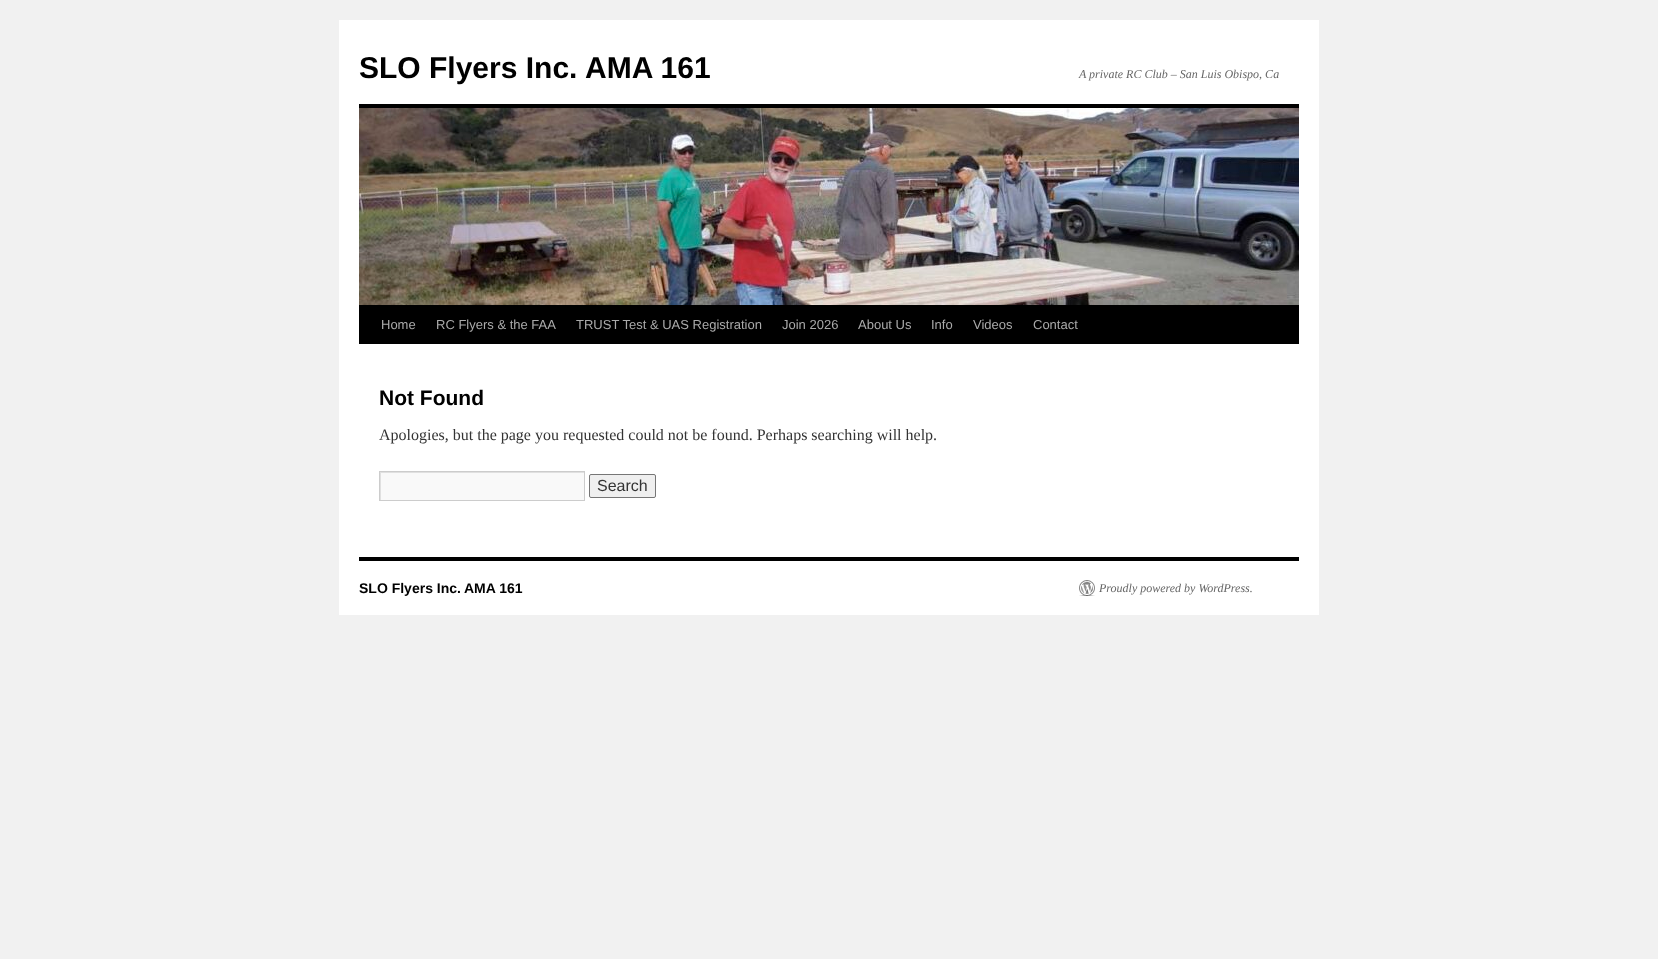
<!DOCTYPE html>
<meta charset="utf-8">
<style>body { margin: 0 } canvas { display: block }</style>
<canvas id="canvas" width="1658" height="959"></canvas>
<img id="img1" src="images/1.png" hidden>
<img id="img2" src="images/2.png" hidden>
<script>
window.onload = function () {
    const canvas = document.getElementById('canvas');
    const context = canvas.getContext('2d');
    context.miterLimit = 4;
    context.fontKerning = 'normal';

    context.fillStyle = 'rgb(241, 241, 241)';
    context.fillRect(0, 0, 1658, 959);
    context.fillStyle = 'rgb(255, 255, 255)';
    context.fillRect(339, 20, 980, 595);
    context.fillStyle = 'rgb(0, 0, 0)';
    context.fillRect(359, 104, 940, 4);
    context.fillRect(359, 305, 940, 39);
    context.drawImage(document.getElementById('img1'), 359, 108, 940, 197);
    context.fillStyle = 'rgb(249, 249, 249)';
    context.fillRect(381, 473, 203, 27);
    context.save();
    context.beginPath();
    context.rect(380, 472, 204, 28);
    context.clip();
    context.fillStyle = 'rgb(224, 224, 224)';
    context.beginPath();
    context.moveTo(281, 373);
    context.lineTo(683, 373);
    context.lineTo(683, 599);
    context.lineTo(281, 599);
    context.closePath();
    context.moveTo(381, 473);
    context.lineTo(585, 473);
    context.lineTo(585, 501);
    context.lineTo(381, 501);
    context.closePath();
    context.fill('evenodd');
    context.restore();
    context.strokeStyle = 'rgb(204, 204, 204)';
    context.strokeRect(379.5, 471.5, 205, 29);
    context.fillStyle = 'rgb(239, 239, 239)';
    context.beginPath();
    context.roundRect(589.5, 474.5, 66, 23, 1.5);
    context.fill();
    context.strokeStyle = 'rgb(118, 118, 118)';
    context.stroke();
    context.fillStyle = 'rgb(0, 0, 0)';
    context.fillRect(359, 557, 940, 4);
    context.drawImage(document.getElementById('img2'), 1079, 580, 16, 16);
    context.font = 'bold 30px Liberation Sans';
    context.fillText('SLO Flyers Inc.', 359, 78);
    context.fillText('AMA 161', 585, 78);
    context.font = 'italic 12px Liberation Serif';
    context.fillStyle = 'rgb(102, 102, 102)';
    context.fillText('A private RC Club – San Luis Obispo, Ca', 1079, 78);
    context.font = '13px Liberation Sans';
    context.fillStyle = 'rgb(170, 170, 170)';
    context.fillText('Home', 381, 329);
    context.fillText('RC Flyers & the FAA', 436, 329);
    context.fillText('TRUST Test & UAS Registration', 576, 329);
    context.fillText('Join 2026', 782, 329);
    context.fillText('About Us', 858, 329);
    context.fillText('Info', 931, 329);
    context.fillText('Videos', 973, 329);
    context.fillText('Contact', 1033, 329);
    context.font = 'bold 21px Liberation Sans';
    context.fillStyle = 'rgb(0, 0, 0)';
    context.fillText('Not Found', 379, 405);
    context.font = '16px Liberation Serif';
    context.fillStyle = 'rgb(51, 51, 51)';
    context.fillText('Apologies, but the page you requested could not be found. Perhaps searching will help.', 379, 440);
    context.font = '16px Liberation Sans';
    context.fillText('Search', 597, 491);
    context.font = 'bold 14px Liberation Sans';
    context.fillStyle = 'rgb(0, 0, 0)';
    context.fillText('SLO Flyers Inc.', 359, 593);
    context.fillText('AMA 161', 464, 593);
    context.font = 'italic 12px Liberation Serif';
    context.fillStyle = 'rgb(102, 102, 102)';
    context.fillText('Proudly powered by WordPress.', 1099, 592);
};
</script>
